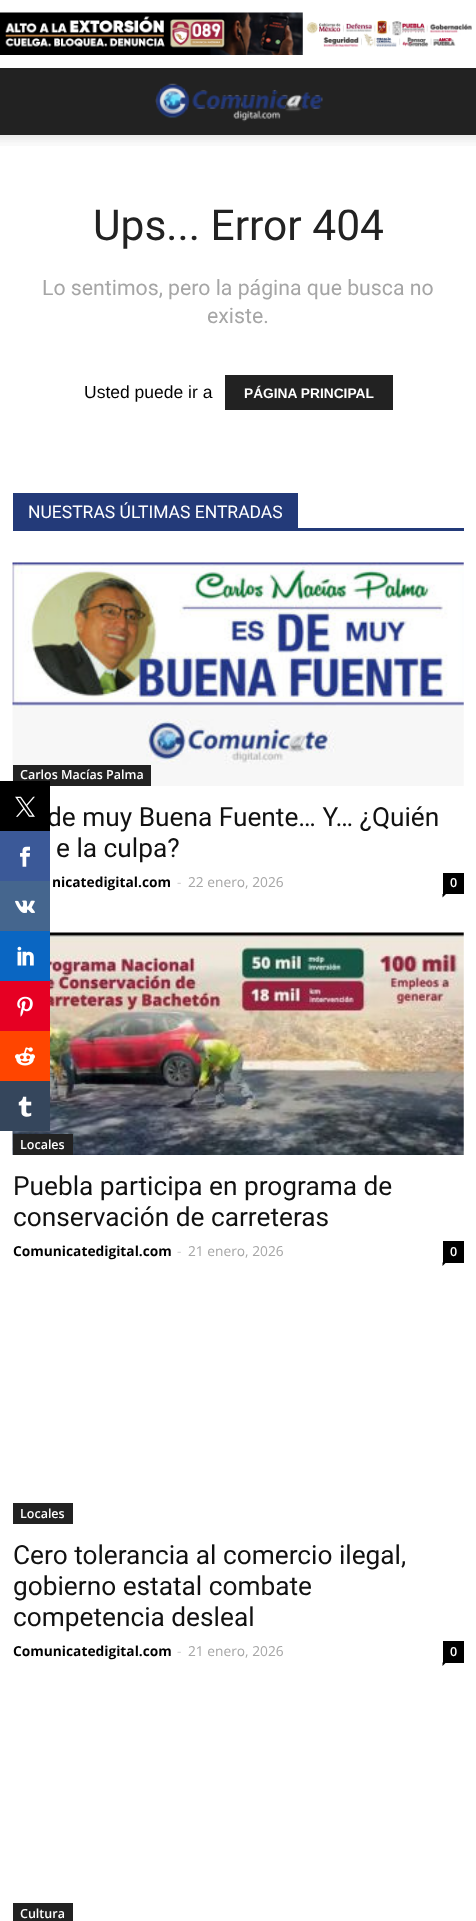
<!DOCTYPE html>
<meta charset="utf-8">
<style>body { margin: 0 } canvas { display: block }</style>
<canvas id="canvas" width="476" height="1921"></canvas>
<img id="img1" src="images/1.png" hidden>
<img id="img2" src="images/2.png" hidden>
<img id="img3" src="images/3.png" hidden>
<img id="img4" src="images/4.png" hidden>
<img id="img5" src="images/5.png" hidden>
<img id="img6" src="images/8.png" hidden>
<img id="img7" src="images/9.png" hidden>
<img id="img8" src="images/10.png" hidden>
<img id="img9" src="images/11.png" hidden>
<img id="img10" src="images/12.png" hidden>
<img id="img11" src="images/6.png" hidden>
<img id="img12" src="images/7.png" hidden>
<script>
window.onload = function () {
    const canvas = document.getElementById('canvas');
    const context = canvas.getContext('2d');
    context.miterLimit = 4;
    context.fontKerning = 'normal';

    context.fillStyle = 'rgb(255, 255, 255)';
    context.fillRect(0, 0, 476, 1921);
    context.drawImage(document.getElementById('img1'), 0, 12, 472, 43);
    context.fillStyle = 'rgb(34, 34, 34)';
    context.fillRect(0, 68, 476, 67);
    context.drawImage(document.getElementById('img2'), 155, 83, 168, 39);
    context.drawImage(document.getElementById('img3'), 0, 135, 476, 11);
    context.fillRect(225, 375, 168, 35);
    context.fillStyle = 'rgb(35, 58, 121)';
    context.fillRect(13, 528, 451, 3);
    context.fillRect(13, 493, 285, 35);
    context.drawImage(document.getElementById('img4'), 12, 562, 452, 224);
    context.fillStyle = 'rgb(34, 34, 34)';
    context.fillRect(13, 765, 138, 21);
    context.fillStyle = 'rgb(0, 0, 0)';
    context.fillRect(443, 873, 21, 21);
    context.beginPath();
    context.moveTo(442.5, 894);
    context.lineTo(446, 894);
    context.lineTo(442.5, 897.5);
    context.closePath();
    context.fill();
    context.drawImage(document.getElementById('img5'), 12, 932, 452, 223);
    context.fillStyle = 'rgb(34, 34, 34)';
    context.fillRect(13, 1134, 60, 21);
    context.fillStyle = 'rgb(0, 0, 0)';
    context.fillRect(443, 1241, 21, 22);
    context.beginPath();
    context.moveTo(442.5, 1262.5);
    context.lineTo(446, 1262.5);
    context.lineTo(442.5, 1266);
    context.closePath();
    context.fill();
    context.fillStyle = 'rgb(34, 34, 34)';
    context.fillRect(13, 1503, 60, 21);
    context.fillStyle = 'rgb(0, 0, 0)';
    context.fillRect(443, 1641, 21, 22);
    context.beginPath();
    context.moveTo(442.5, 1662.5);
    context.lineTo(446, 1662.5);
    context.lineTo(442.5, 1666);
    context.closePath();
    context.fill();
    context.fillStyle = 'rgb(34, 34, 34)';
    context.fillRect(13, 1903, 60, 18);
    context.fillStyle = 'rgb(69, 102, 142)';
    context.fillRect(0, 881, 50, 50);
    context.drawImage(document.getElementById('img6'), 15, 900, 20, 13);
    context.fillStyle = 'rgb(10, 102, 194)';
    context.fillRect(0, 931, 50, 50);
    context.drawImage(document.getElementById('img7'), 17, 946, 17, 20);
    context.fillStyle = 'rgb(230, 0, 35)';
    context.fillRect(0, 981, 50, 50);
    context.drawImage(document.getElementById('img8'), 17, 996, 16, 21);
    context.fillStyle = 'rgb(255, 69, 0)';
    context.fillRect(0, 1031, 50, 50);
    context.drawImage(document.getElementById('img9'), 15, 1047, 20, 19);
    context.fillStyle = 'rgb(53, 70, 92)';
    context.fillRect(0, 1081, 50, 50);
    context.drawImage(document.getElementById('img10'), 18, 1096, 14, 21);
    context.font = '42.5px Roboto';
    context.fillStyle = 'rgb(34, 34, 34)';
    context.fillText('Ups... Error 404', 93, 240);
    context.font = '21.25px Roboto';
    context.fillStyle = 'rgb(166, 166, 166)';
    context.fillText('Lo sentimos, pero la página que busca no', 42, 295);
    context.fillText('existe.', 207, 323);
    context.font = '17.5px Liberation Sans';
    context.fillStyle = 'rgb(0, 0, 0)';
    context.fillText('Usted puede ir a', 84, 398);
    context.font = 'bold 13.75px Liberation Sans';
    context.fillStyle = 'rgb(255, 255, 255)';
    context.fillText('PÁGINA PRINCIPAL', 244, 398);
    context.font = '17.5px Roboto';
    context.fillText('NUESTRAS ÚLTIMAS ENTRADAS', 28, 518);
    context.font = '600 12.5px Open Sans';
    context.fillText('Carlos Macías Palma', 20, 779);
    context.font = '26.25px Roboto';
    context.fillStyle = 'rgb(17, 17, 17)';
    context.fillText('de muy Buena Fuente… Y… ¿Quién', 47, 826);
    context.fillText('e la culpa?', 56, 857);
    context.font = 'bold 13.75px Open Sans';
    context.fillStyle = 'rgb(0, 0, 0)';
    context.fillText('nicatedigital.com', 52, 887);
    context.font = '13.75px Open Sans';
    context.fillStyle = 'rgb(204, 204, 204)';
    context.fillText('-', 177, 887);
    context.fillStyle = 'rgb(166, 166, 166)';
    context.fillText('22 enero, 2026', 188, 887);
    context.font = '600 12.5px Open Sans';
    context.fillStyle = 'rgb(255, 255, 255)';
    context.fillText('0', 450, 887);
    context.fillText('Locales', 20, 1149);
    context.font = '26.25px Roboto';
    context.fillStyle = 'rgb(17, 17, 17)';
    context.fillText('Puebla participa en programa de', 13, 1195);
    context.fillText('conservación de carreteras', 13, 1226);
    context.font = 'bold 13.75px Open Sans';
    context.fillStyle = 'rgb(0, 0, 0)';
    context.fillText('Comunicatedigital.com', 13, 1256);
    context.font = '13.75px Open Sans';
    context.fillStyle = 'rgb(204, 204, 204)';
    context.fillText('-', 177, 1256);
    context.fillStyle = 'rgb(166, 166, 166)';
    context.fillText('21 enero, 2026', 188, 1256);
    context.font = '600 12.5px Open Sans';
    context.fillStyle = 'rgb(255, 255, 255)';
    context.fillText('0', 450, 1256);
    context.fillText('Locales', 20, 1518);
    context.font = '26.25px Roboto';
    context.fillStyle = 'rgb(17, 17, 17)';
    context.fillText('Cero tolerancia al comercio ilegal,', 13, 1564);
    context.fillText('gobierno estatal combate', 13, 1595);
    context.fillText('competencia desleal', 13, 1626);
    context.font = 'bold 13.75px Open Sans';
    context.fillStyle = 'rgb(0, 0, 0)';
    context.fillText('Comunicatedigital.com', 13, 1656);
    context.font = '13.75px Open Sans';
    context.fillStyle = 'rgb(204, 204, 204)';
    context.fillText('-', 177, 1656);
    context.fillStyle = 'rgb(166, 166, 166)';
    context.fillText('21 enero, 2026', 188, 1656);
    context.font = '600 12.5px Open Sans';
    context.fillStyle = 'rgb(255, 255, 255)';
    context.fillText('0', 450, 1656);
    context.fillText('Cultura', 20, 1918);
    context.fillStyle = 'rgb(0, 0, 0)';
    context.fillRect(0, 781, 50, 50);
    context.drawImage(document.getElementById('img11'), 15, 796, 20, 21);
    context.fillStyle = 'rgb(59, 89, 152)';
    context.fillRect(0, 831, 50, 50);
    context.drawImage(document.getElementById('img12'), 20, 846, 10, 21);
};
</script>
